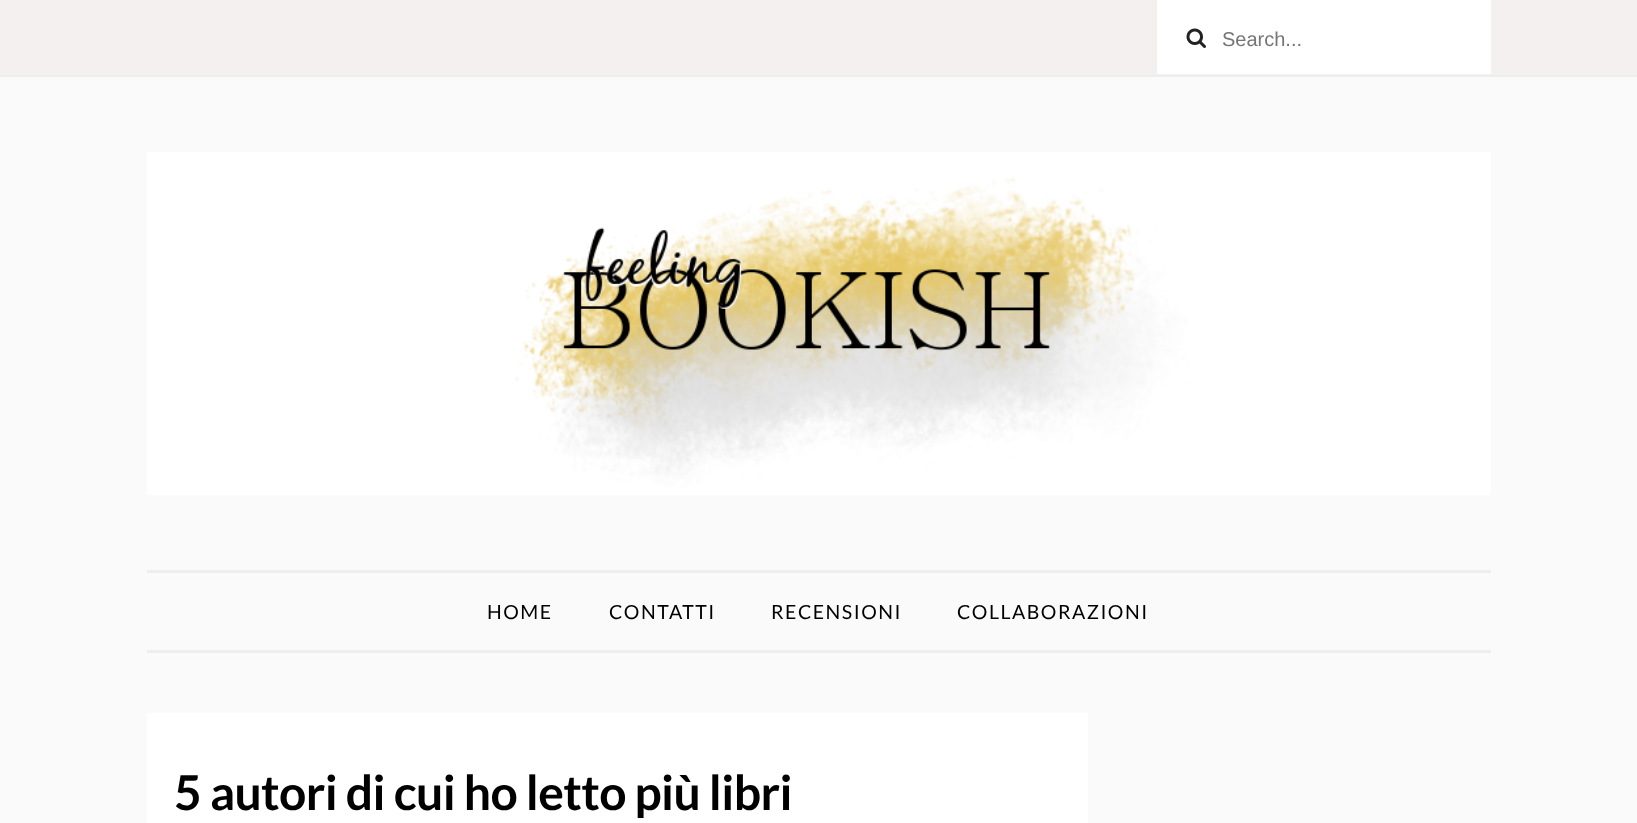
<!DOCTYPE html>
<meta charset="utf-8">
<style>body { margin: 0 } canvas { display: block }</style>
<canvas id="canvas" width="1637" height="823"></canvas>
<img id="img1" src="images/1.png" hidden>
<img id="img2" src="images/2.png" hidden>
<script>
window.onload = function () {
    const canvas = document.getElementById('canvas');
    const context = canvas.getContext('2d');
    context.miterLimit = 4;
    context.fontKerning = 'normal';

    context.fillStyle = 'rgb(250, 250, 250)';
    context.fillRect(0, 0, 1637, 823);
    context.fillStyle = 'rgb(244, 240, 239)';
    context.fillRect(0, 0, 1637, 75);
    context.fillStyle = 'rgb(238, 238, 238)';
    context.fillRect(0, 75, 1637, 2);
    context.fillStyle = 'rgb(255, 255, 255)';
    context.fillRect(1157, 0, 334, 74);
    context.fillStyle = 'rgb(240, 240, 240)';
    context.fillRect(1155, 0, 2, 74);
    context.drawImage(document.getElementById('img1'), 1186, 28, 20, 20);
    context.drawImage(document.getElementById('img2'), 147, 152, 1344, 343);
    context.fillStyle = 'rgb(238, 238, 238)';
    context.fillRect(147, 570, 1344, 3);
    context.fillRect(147, 650, 1344, 3);
    context.fillStyle = 'rgb(255, 255, 255)';
    context.fillRect(147, 713, 941, 110);
    context.font = '20px Liberation Sans';
    context.fillStyle = 'rgb(117, 117, 117)';
    context.fillText('Search...', 1222, 46);
    context.letterSpacing = '1.5px';
    context.font = '19.5px Lato';
    context.fillStyle = 'rgb(0, 0, 0)';
    context.fillText('HOME', 487, 619);
    context.fillText('CONTATTI', 609, 619);
    context.fillText('RECENSIONI', 771, 619);
    context.fillText('COLLABORAZIONI', 957, 619);
    context.letterSpacing = '-0.6px';
    context.font = 'bold 48px Lato';
    context.fillText('5 autori di cui ho letto più libri', 174, 810);
};
</script>
